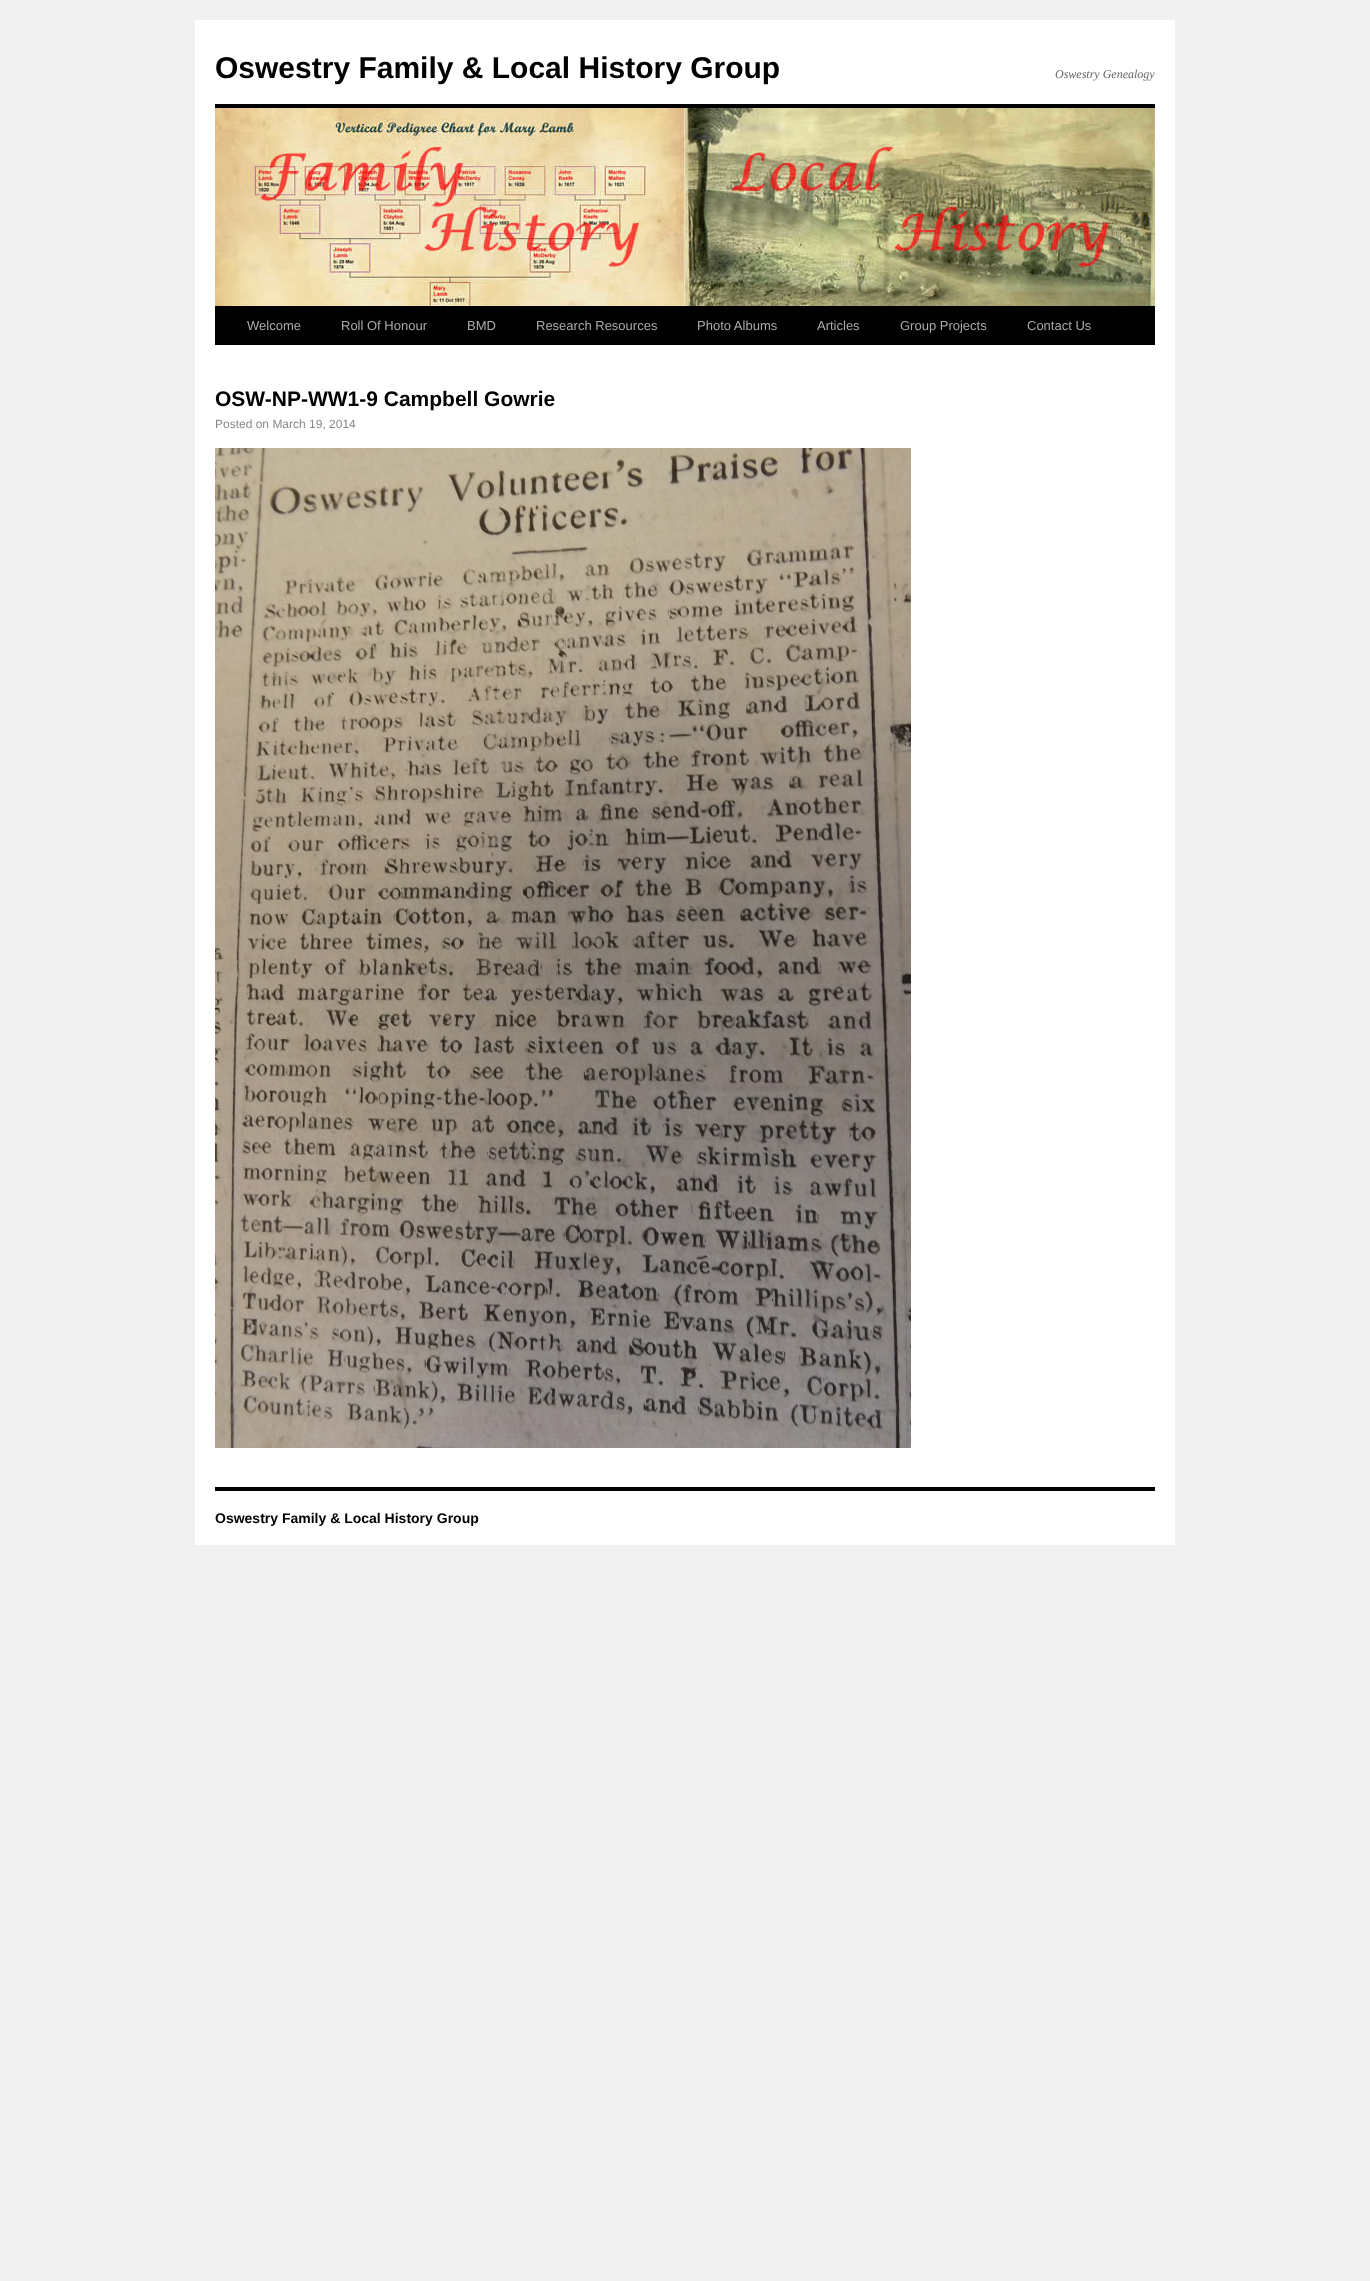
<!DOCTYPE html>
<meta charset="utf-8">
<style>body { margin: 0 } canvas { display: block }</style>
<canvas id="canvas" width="1370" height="2281"></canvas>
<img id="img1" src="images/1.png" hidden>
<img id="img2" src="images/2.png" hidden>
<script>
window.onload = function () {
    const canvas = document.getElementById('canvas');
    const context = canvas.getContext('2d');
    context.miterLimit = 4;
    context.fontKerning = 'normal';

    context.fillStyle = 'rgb(241, 241, 241)';
    context.fillRect(0, 0, 1370, 2281);
    context.fillStyle = 'rgb(255, 255, 255)';
    context.fillRect(195, 20, 980, 1525);
    context.fillStyle = 'rgb(0, 0, 0)';
    context.fillRect(215, 104, 940, 4);
    context.fillRect(215, 306, 940, 39);
    context.drawImage(document.getElementById('img1'), 215, 108, 940, 198);
    context.drawImage(document.getElementById('img2'), 215, 448, 696, 1000);
    context.fillRect(215, 1487, 940, 4);
    context.font = 'bold 30px Liberation Sans';
    context.fillText('Oswestry Family & Local History Group', 215, 78);
    context.font = 'italic 12px Liberation Serif';
    context.fillStyle = 'rgb(102, 102, 102)';
    context.fillText('Oswestry Genealogy', 1055, 78);
    context.font = '13px Liberation Sans';
    context.fillStyle = 'rgb(170, 170, 170)';
    context.fillText('Welcome', 247, 330);
    context.fillText('Roll Of Honour', 341, 330);
    context.fillText('BMD', 467, 330);
    context.fillText('Research Resources', 536, 330);
    context.fillText('Photo Albums', 697, 330);
    context.fillText('Articles', 817, 330);
    context.fillText('Group Projects', 900, 330);
    context.fillText('Contact Us', 1027, 330);
    context.font = 'bold 21px Liberation Sans';
    context.fillStyle = 'rgb(0, 0, 0)';
    context.fillText('OSW-NP-WW1-9 Campbell Gowrie', 215, 406);
    context.font = '12px Liberation Sans';
    context.fillStyle = 'rgb(136, 136, 136)';
    context.fillText('Posted on March 19, 2014', 215, 428);
    context.font = 'bold 14px Liberation Sans';
    context.fillStyle = 'rgb(0, 0, 0)';
    context.fillText('Oswestry Family & Local History Group', 215, 1523);
};
</script>
